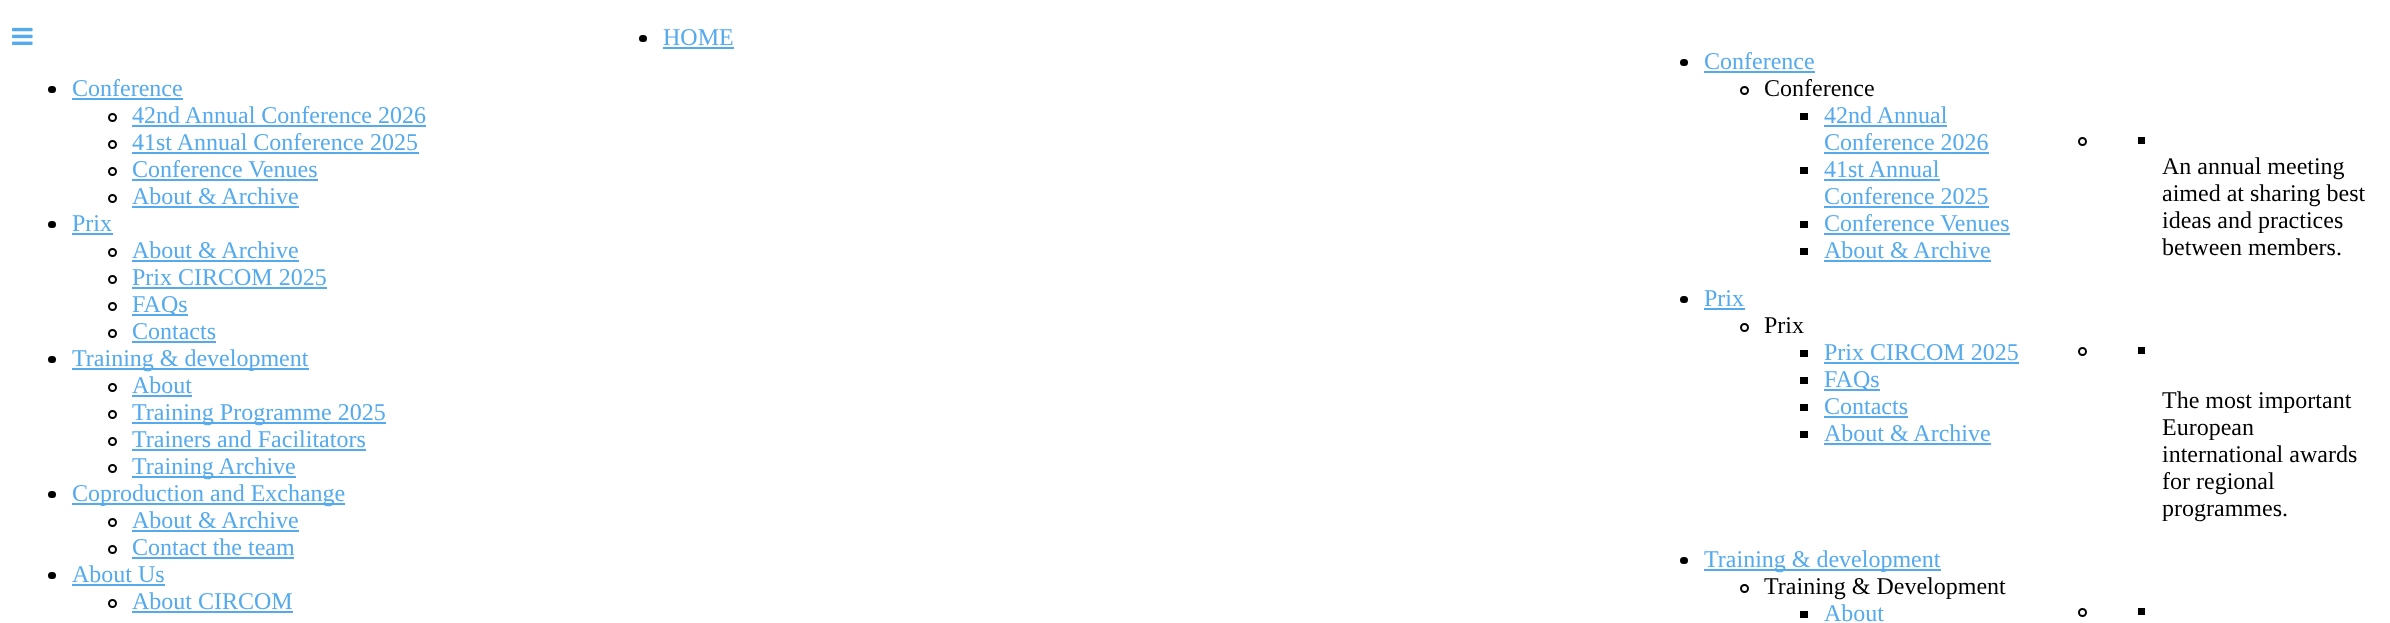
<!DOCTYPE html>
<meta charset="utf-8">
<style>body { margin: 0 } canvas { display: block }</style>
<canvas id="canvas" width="2390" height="623"></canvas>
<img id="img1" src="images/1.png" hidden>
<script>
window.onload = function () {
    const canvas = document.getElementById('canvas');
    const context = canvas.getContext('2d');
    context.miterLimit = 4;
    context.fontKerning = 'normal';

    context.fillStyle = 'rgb(255, 255, 255)';
    context.fillRect(0, 0, 2390, 623);
    context.fillStyle = 'rgb(0, 0, 0)';
    context.beginPath();
    context.roundRect(639, 35, 8, 7, 3.5);
    context.fill();
    context.fillStyle = 'rgb(85, 170, 238)';
    context.fillRect(663, 47, 71, 2);
    context.drawImage(document.getElementById('img1'), 12, 27, 21, 18);
    context.fillStyle = 'rgb(0, 0, 0)';
    context.beginPath();
    context.roundRect(48, 86, 8, 7, 3.5);
    context.fill();
    context.fillStyle = 'rgb(85, 170, 238)';
    context.fillRect(72, 98, 111, 2);
    context.beginPath();
    context.arc(112.5, 117.5, 3.5, 0, 2 * Math.PI);
    context.strokeStyle = 'rgb(0, 0, 0)';
    context.lineWidth = 2;
    context.stroke();
    context.fillRect(132, 125, 294, 2);
    context.beginPath();
    context.arc(112.5, 144.5, 3.5, 0, 2 * Math.PI);
    context.stroke();
    context.fillRect(132, 152, 287, 2);
    context.beginPath();
    context.arc(112.5, 171.5, 3.5, 0, 2 * Math.PI);
    context.stroke();
    context.fillRect(132, 179, 186, 2);
    context.beginPath();
    context.arc(112.5, 198.5, 3.5, 0, 2 * Math.PI);
    context.stroke();
    context.fillRect(132, 206, 167, 2);
    context.fillStyle = 'rgb(0, 0, 0)';
    context.beginPath();
    context.roundRect(48, 221, 8, 7, 3.5);
    context.fill();
    context.fillStyle = 'rgb(85, 170, 238)';
    context.fillRect(72, 233, 41, 2);
    context.beginPath();
    context.arc(112.5, 252.5, 3.5, 0, 2 * Math.PI);
    context.stroke();
    context.fillRect(132, 260, 167, 2);
    context.beginPath();
    context.arc(112.5, 279.5, 3.5, 0, 2 * Math.PI);
    context.stroke();
    context.fillRect(132, 287, 195, 2);
    context.beginPath();
    context.arc(112.5, 306.5, 3.5, 0, 2 * Math.PI);
    context.stroke();
    context.fillRect(132, 314, 56, 2);
    context.beginPath();
    context.arc(112.5, 333.5, 3.5, 0, 2 * Math.PI);
    context.stroke();
    context.fillRect(132, 341, 84, 2);
    context.fillStyle = 'rgb(0, 0, 0)';
    context.beginPath();
    context.roundRect(48, 356, 8, 7, 3.5);
    context.fill();
    context.fillStyle = 'rgb(85, 170, 238)';
    context.fillRect(72, 368, 237, 2);
    context.beginPath();
    context.arc(112.5, 387.5, 3.5, 0, 2 * Math.PI);
    context.stroke();
    context.fillRect(132, 395, 60, 2);
    context.beginPath();
    context.arc(112.5, 414.5, 3.5, 0, 2 * Math.PI);
    context.stroke();
    context.fillRect(132, 422, 254, 2);
    context.beginPath();
    context.arc(112.5, 441.5, 3.5, 0, 2 * Math.PI);
    context.stroke();
    context.fillRect(132, 449, 234, 2);
    context.beginPath();
    context.arc(112.5, 468.5, 3.5, 0, 2 * Math.PI);
    context.stroke();
    context.fillRect(132, 476, 164, 2);
    context.fillStyle = 'rgb(0, 0, 0)';
    context.beginPath();
    context.roundRect(48, 491, 8, 7, 3.5);
    context.fill();
    context.fillStyle = 'rgb(85, 170, 238)';
    context.fillRect(72, 503, 273, 2);
    context.beginPath();
    context.arc(112.5, 522.5, 3.5, 0, 2 * Math.PI);
    context.stroke();
    context.fillRect(132, 530, 167, 2);
    context.beginPath();
    context.arc(112.5, 549.5, 3.5, 0, 2 * Math.PI);
    context.stroke();
    context.fillRect(132, 557, 162, 2);
    context.fillStyle = 'rgb(0, 0, 0)';
    context.beginPath();
    context.roundRect(48, 572, 8, 7, 3.5);
    context.fill();
    context.fillStyle = 'rgb(85, 170, 238)';
    context.fillRect(72, 584, 93, 2);
    context.beginPath();
    context.arc(112.5, 603.5, 3.5, 0, 2 * Math.PI);
    context.stroke();
    context.fillRect(132, 611, 161, 2);
    context.fillStyle = 'rgb(0, 0, 0)';
    context.beginPath();
    context.roundRect(1680, 59, 8, 7, 3.5);
    context.fill();
    context.fillStyle = 'rgb(85, 170, 238)';
    context.fillRect(1704, 71, 111, 2);
    context.beginPath();
    context.arc(1744.5, 90.5, 3.5, 0, 2 * Math.PI);
    context.stroke();
    context.fillStyle = 'rgb(0, 0, 0)';
    context.fillRect(1800, 113, 8, 7);
    context.fillStyle = 'rgb(85, 170, 238)';
    context.fillRect(1824, 125, 123, 2);
    context.fillRect(1824, 152, 165, 2);
    context.fillStyle = 'rgb(0, 0, 0)';
    context.fillRect(1800, 167, 8, 7);
    context.fillStyle = 'rgb(85, 170, 238)';
    context.fillRect(1824, 179, 116, 2);
    context.fillRect(1824, 206, 165, 2);
    context.fillStyle = 'rgb(0, 0, 0)';
    context.fillRect(1800, 221, 8, 7);
    context.fillStyle = 'rgb(85, 170, 238)';
    context.fillRect(1824, 233, 186, 2);
    context.fillStyle = 'rgb(0, 0, 0)';
    context.fillRect(1800, 248, 8, 7);
    context.fillStyle = 'rgb(85, 170, 238)';
    context.fillRect(1824, 260, 167, 2);
    context.beginPath();
    context.arc(2082.5, 141.5, 3.5, 0, 2 * Math.PI);
    context.stroke();
    context.fillStyle = 'rgb(0, 0, 0)';
    context.fillRect(2138, 137, 7, 7);
    context.beginPath();
    context.roundRect(1680, 296, 8, 7, 3.5);
    context.fill();
    context.fillStyle = 'rgb(85, 170, 238)';
    context.fillRect(1704, 308, 41, 2);
    context.beginPath();
    context.arc(1744.5, 327.5, 3.5, 0, 2 * Math.PI);
    context.stroke();
    context.fillStyle = 'rgb(0, 0, 0)';
    context.fillRect(1800, 350, 8, 7);
    context.fillStyle = 'rgb(85, 170, 238)';
    context.fillRect(1824, 362, 195, 2);
    context.fillStyle = 'rgb(0, 0, 0)';
    context.fillRect(1800, 377, 8, 7);
    context.fillStyle = 'rgb(85, 170, 238)';
    context.fillRect(1824, 389, 56, 2);
    context.fillStyle = 'rgb(0, 0, 0)';
    context.fillRect(1800, 404, 8, 7);
    context.fillStyle = 'rgb(85, 170, 238)';
    context.fillRect(1824, 416, 84, 2);
    context.fillStyle = 'rgb(0, 0, 0)';
    context.fillRect(1800, 431, 8, 7);
    context.fillStyle = 'rgb(85, 170, 238)';
    context.fillRect(1824, 443, 167, 2);
    context.beginPath();
    context.arc(2082.5, 351.5, 3.5, 0, 2 * Math.PI);
    context.stroke();
    context.fillStyle = 'rgb(0, 0, 0)';
    context.fillRect(2138, 347, 7, 7);
    context.beginPath();
    context.roundRect(1680, 557, 8, 7, 3.5);
    context.fill();
    context.fillStyle = 'rgb(85, 170, 238)';
    context.fillRect(1704, 569, 237, 2);
    context.beginPath();
    context.arc(1744.5, 588.5, 3.5, 0, 2 * Math.PI);
    context.stroke();
    context.fillStyle = 'rgb(0, 0, 0)';
    context.fillRect(1800, 611, 8, 7);
    context.beginPath();
    context.arc(2082.5, 612.5, 3.5, 0, 2 * Math.PI);
    context.stroke();
    context.fillRect(2138, 608, 7, 7);
    context.font = '24px Liberation Serif';
    context.fillStyle = 'rgb(85, 170, 238)';
    context.fillText('HOME', 663, 45);
    context.fillText('Conference', 72, 96);
    context.fillText('42nd Annual Conference 2026', 132, 123);
    context.fillText('41st Annual Conference 2025', 132, 150);
    context.fillText('Conference Venues', 132, 177);
    context.fillText('About & Archive', 132, 204);
    context.fillText('Prix', 72, 231);
    context.fillText('About & Archive', 132, 258);
    context.fillText('Prix CIRCOM 2025', 132, 285);
    context.fillText('FAQs', 132, 312);
    context.fillText('Contacts', 132, 339);
    context.fillText('Training & development', 72, 366);
    context.fillText('About', 132, 393);
    context.fillText('Training Programme 2025', 132, 420);
    context.fillText('Trainers and Facilitators', 132, 447);
    context.fillText('Training Archive', 132, 474);
    context.fillText('Coproduction and Exchange', 72, 501);
    context.fillText('About & Archive', 132, 528);
    context.fillText('Contact the team', 132, 555);
    context.fillText('About Us', 72, 582);
    context.fillText('About CIRCOM', 132, 609);
    context.fillText('Conference', 1704, 69);
    context.fillStyle = 'rgb(0, 0, 0)';
    context.fillText('Conference', 1764, 96);
    context.fillStyle = 'rgb(85, 170, 238)';
    context.fillText('42nd Annual', 1824, 123);
    context.fillText('Conference 2026', 1824, 150);
    context.fillText('41st Annual', 1824, 177);
    context.fillText('Conference 2025', 1824, 204);
    context.fillText('Conference Venues', 1824, 231);
    context.fillText('About & Archive', 1824, 258);
    context.fillStyle = 'rgb(0, 0, 0)';
    context.fillText('An annual meeting', 2162, 174);
    context.fillText('aimed at sharing best', 2162, 201);
    context.fillText('ideas and practices', 2162, 228);
    context.fillText('between members.', 2162, 255);
    context.fillStyle = 'rgb(85, 170, 238)';
    context.fillText('Prix', 1704, 306);
    context.fillStyle = 'rgb(0, 0, 0)';
    context.fillText('Prix', 1764, 333);
    context.fillStyle = 'rgb(85, 170, 238)';
    context.fillText('Prix CIRCOM 2025', 1824, 360);
    context.fillText('FAQs', 1824, 387);
    context.fillText('Contacts', 1824, 414);
    context.fillText('About & Archive', 1824, 441);
    context.fillStyle = 'rgb(0, 0, 0)';
    context.fillText('The most important', 2162, 408);
    context.fillText('European', 2162, 435);
    context.fillText('international awards', 2162, 462);
    context.fillText('for regional', 2162, 489);
    context.fillText('programmes.', 2162, 516);
    context.fillStyle = 'rgb(85, 170, 238)';
    context.fillText('Training & development', 1704, 567);
    context.fillStyle = 'rgb(0, 0, 0)';
    context.fillText('Training & Development', 1764, 594);
    context.fillStyle = 'rgb(85, 170, 238)';
    context.fillText('About', 1824, 621);
};
</script>
